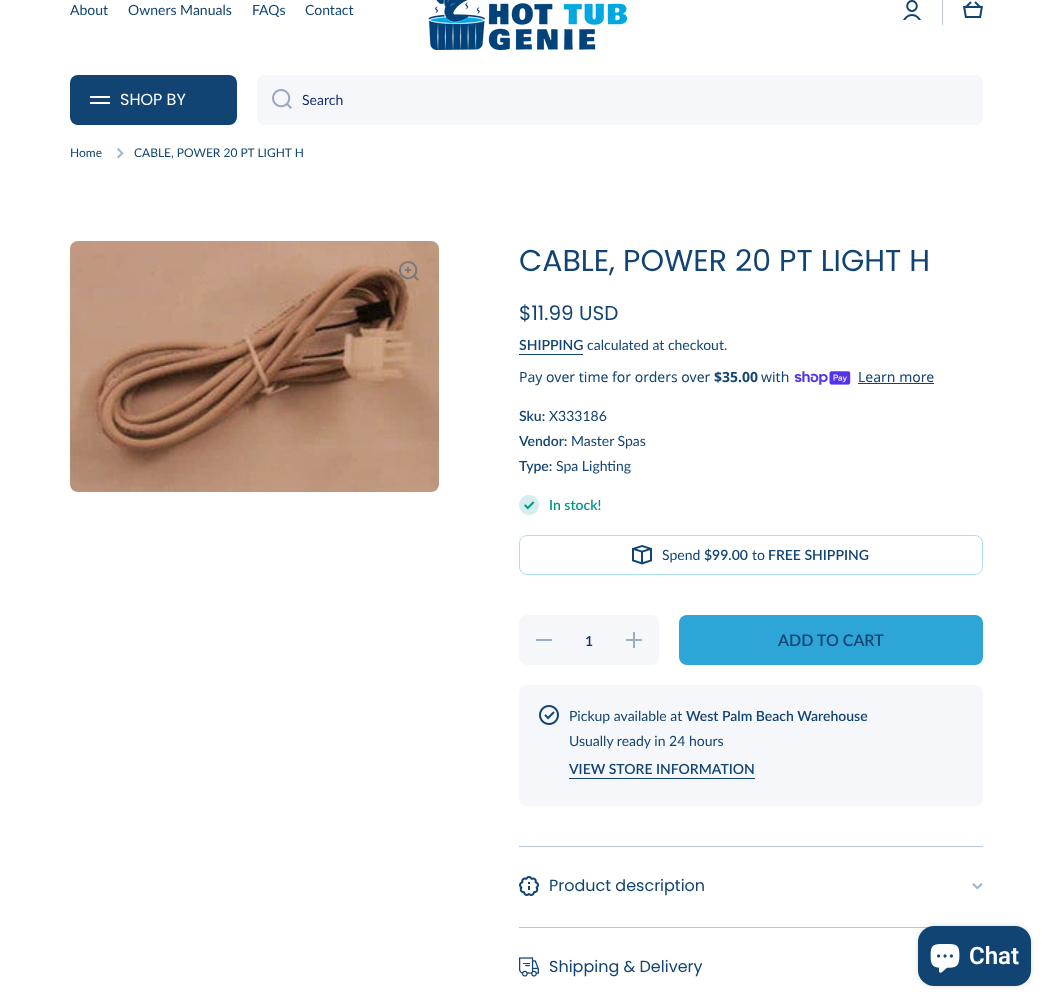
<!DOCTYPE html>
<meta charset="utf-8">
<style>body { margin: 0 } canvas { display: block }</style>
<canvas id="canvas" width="1053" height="1007"></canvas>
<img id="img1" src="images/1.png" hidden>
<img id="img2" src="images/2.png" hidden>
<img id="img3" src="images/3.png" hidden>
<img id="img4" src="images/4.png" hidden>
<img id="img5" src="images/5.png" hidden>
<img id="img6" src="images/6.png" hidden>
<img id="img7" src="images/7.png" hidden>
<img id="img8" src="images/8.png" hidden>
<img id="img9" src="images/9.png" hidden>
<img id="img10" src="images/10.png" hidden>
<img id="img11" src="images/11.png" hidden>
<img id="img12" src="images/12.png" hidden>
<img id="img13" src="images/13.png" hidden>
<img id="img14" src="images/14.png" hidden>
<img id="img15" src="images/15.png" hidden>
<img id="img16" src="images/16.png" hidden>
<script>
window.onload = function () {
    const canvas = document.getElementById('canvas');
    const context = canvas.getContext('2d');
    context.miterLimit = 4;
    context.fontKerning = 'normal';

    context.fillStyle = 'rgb(255, 255, 255)';
    context.fillRect(0, 0, 1053, 1007);
    context.drawImage(document.getElementById('img1'), 428, 0, 199, 50);
    context.drawImage(document.getElementById('img2'), 903, 0, 18, 20);
    context.fillStyle = 'rgb(184, 199, 213)';
    context.fillRect(942, 0, 1, 25);
    context.drawImage(document.getElementById('img3'), 963, 1, 20, 17);
    context.fillStyle = 'rgb(17, 67, 115)';
    context.beginPath();
    context.roundRect(70, 75, 167, 50, 8);
    context.fill();
    context.fillStyle = 'rgb(255, 255, 255)';
    context.fillRect(90, 96, 20, 2);
    context.fillRect(90, 102, 20, 2);
    context.fillStyle = 'rgb(246, 247, 250)';
    context.beginPath();
    context.roundRect(257, 75, 726, 50, 8);
    context.fill();
    context.drawImage(document.getElementById('img4'), 272, 89, 20, 20);
    context.drawImage(document.getElementById('img5'), 117, 148, 7, 11);
    context.drawImage(document.getElementById('img6'), 70, 241, 369, 251);
    context.drawImage(document.getElementById('img7'), 399, 261, 20, 20);
    context.fillStyle = 'rgb(17, 67, 115)';
    context.fillRect(519, 354, 64, 1);
    context.drawImage(document.getElementById('img8'), 794, 371, 57, 14);
    context.fillRect(858, 383, 76, 1);
    context.drawImage(document.getElementById('img9'), 519, 495, 20, 20);
    context.beginPath();
    context.roundRect(519.5, 535.5, 463, 39, 7.5);
    context.strokeStyle = 'rgb(173, 222, 242)';
    context.stroke();
    context.drawImage(document.getElementById('img10'), 632, 545, 20, 20);
    context.fillStyle = 'rgb(246, 247, 250)';
    context.beginPath();
    context.roundRect(519, 615, 140, 50, 8);
    context.fill();
    context.fillStyle = 'rgb(154, 175, 196)';
    context.fillRect(536, 639, 16, 2);
    context.drawImage(document.getElementById('img11'), 626, 632, 16, 16);
    context.fillStyle = 'rgb(46, 165, 215)';
    context.beginPath();
    context.roundRect(679, 615, 304, 50, 8);
    context.fill();
    context.fillStyle = 'rgb(246, 247, 250)';
    context.beginPath();
    context.roundRect(519, 685, 464, 121, 8);
    context.fill();
    context.drawImage(document.getElementById('img12'), 539, 705, 20, 20);
    context.fillStyle = 'rgb(17, 67, 115)';
    context.fillRect(569, 778, 186, 1);
    context.fillStyle = 'rgb(184, 199, 213)';
    context.fillRect(519, 846, 464, 1);
    context.drawImage(document.getElementById('img13'), 519, 876, 20, 20);
    context.drawImage(document.getElementById('img14'), 972, 883, 11, 7);
    context.fillRect(519, 927, 410, 1);
    context.drawImage(document.getElementById('img15'), 519, 957, 20, 20);
    context.fillStyle = 'rgba(0, 0, 0, 0.15)';
    context.filter = 'blur(2.5px)';
    context.beginPath();
    context.roundRect(918, 926, 113, 60, 16);
    context.fill();
    context.filter = 'none';
    context.fillStyle = 'rgb(17, 67, 115)';
    context.beginPath();
    context.roundRect(918, 926, 113, 60, 16);
    context.fill();
    context.drawImage(document.getElementById('img16'), 930, 944, 30, 29);
    context.font = '14px Lato';
    context.fillText('About', 70, 15);
    context.fillText('Owners Manuals', 128, 15);
    context.fillText('FAQs', 252, 15);
    context.fillText('Contact', 305, 15);
    context.font = '16px Poppins';
    context.fillStyle = 'rgb(255, 255, 255)';
    context.fillText('SHOP BY', 120, 105);
    context.font = '14px Lato';
    context.fillStyle = 'rgb(20, 44, 115)';
    context.fillText('Search', 302, 105);
    context.font = '12px Lato';
    context.fillStyle = 'rgb(17, 67, 115)';
    context.fillText('Home', 70, 157);
    context.fillText('CABLE, POWER 20 PT LIGHT H', 134, 157);
    context.font = '30px Poppins';
    context.fillText('CABLE, POWER 20 PT LIGHT H', 519, 271);
    context.font = '20px Poppins';
    context.fillText('$11.99 USD', 519, 320);
    context.font = '600 14px Lato';
    context.fillText('SHIPPING', 519, 350);
    context.font = '14px Lato';
    context.fillText('calculated at checkout.', 587, 350);
    context.font = '14px Noto Sans';
    context.fillText('Pay over time for orders over', 519, 382);
    context.font = 'bold 14px Noto Sans';
    context.fillText('$35.00', 714, 382);
    context.font = '14px Noto Sans';
    context.fillText('with', 761, 382);
    context.fillText('Learn more', 858, 382);
    context.font = '600 14px Lato';
    context.fillText('Sku:', 519, 421);
    context.font = '14px Lato';
    context.fillText('X333186', 549, 421);
    context.font = '600 14px Lato';
    context.fillText('Vendor:', 519, 446);
    context.font = '14px Lato';
    context.fillText('Master Spas', 571, 446);
    context.font = '600 14px Lato';
    context.fillText('Type:', 519, 471);
    context.font = '14px Lato';
    context.fillText('Spa Lighting', 556, 471);
    context.font = '600 14px Lato';
    context.fillStyle = 'rgb(0, 150, 136)';
    context.fillText('In stock!', 549, 510);
    context.font = '14px Lato';
    context.fillStyle = 'rgb(17, 67, 115)';
    context.fillText('Spend', 662, 560);
    context.font = '600 14px Lato';
    context.fillText('$99.00', 704, 560);
    context.font = '14px Lato';
    context.fillText('to', 752, 560);
    context.font = '600 14px Lato';
    context.fillText('FREE SHIPPING', 768, 560);
    context.fillStyle = 'rgb(20, 44, 115)';
    context.fillText('1', 585, 646);
    context.font = '600 16px Lato';
    context.fillStyle = 'rgb(17, 67, 115)';
    context.fillText('ADD TO CART', 778, 646);
    context.font = '14px Lato';
    context.fillText('Pickup available at', 569, 721);
    context.font = '600 14px Lato';
    context.fillText('West Palm Beach Warehouse', 686, 721);
    context.font = '14px Lato';
    context.fillText('Usually ready in 24 hours', 569, 746);
    context.font = '600 14px Lato';
    context.fillText('VIEW STORE INFORMATION', 569, 774);
    context.font = '16px Poppins';
    context.fillText('Product description', 549, 891);
    context.fillText('Shipping & Delivery', 549, 972);
    context.font = '600 24px Roboto';
    context.fillStyle = 'rgb(255, 255, 255)';
    context.fillText('Chat', 969, 964);
};
</script>
